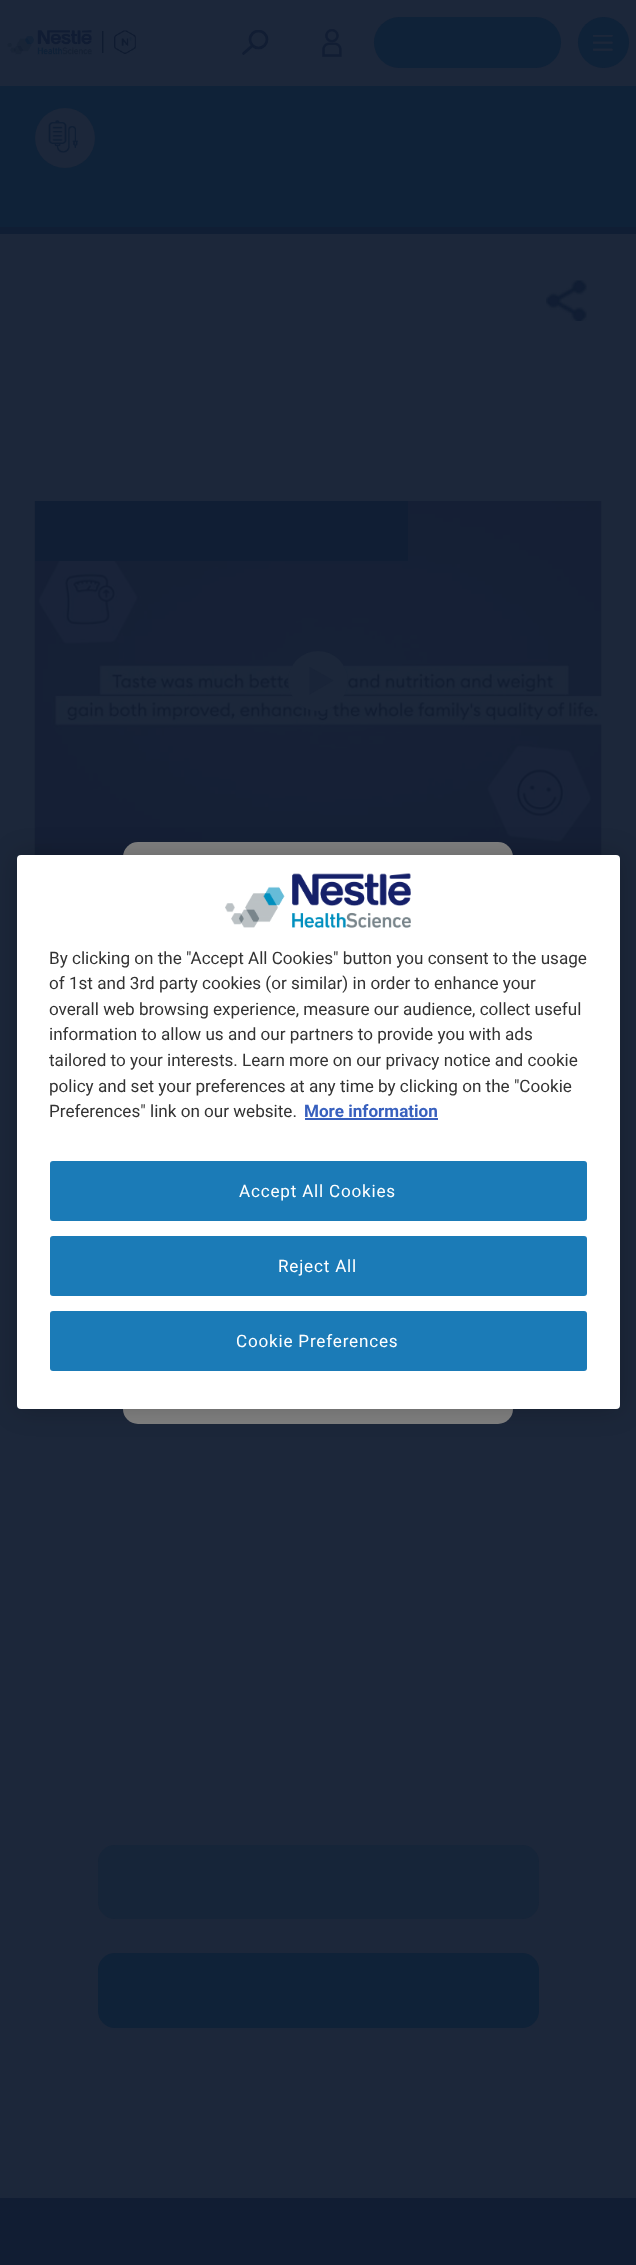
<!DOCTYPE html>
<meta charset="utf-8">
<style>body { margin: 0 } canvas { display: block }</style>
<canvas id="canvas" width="636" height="2265"></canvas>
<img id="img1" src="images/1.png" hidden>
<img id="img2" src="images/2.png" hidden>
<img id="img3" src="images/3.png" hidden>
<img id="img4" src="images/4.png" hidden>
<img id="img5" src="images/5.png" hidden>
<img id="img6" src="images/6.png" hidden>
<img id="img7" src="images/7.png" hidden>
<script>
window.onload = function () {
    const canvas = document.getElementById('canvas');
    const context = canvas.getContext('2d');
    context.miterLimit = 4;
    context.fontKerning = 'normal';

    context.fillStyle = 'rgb(28, 39, 58)';
    context.fillRect(0, 0, 636, 2265);
    context.drawImage(document.getElementById('img1'), 7, 30, 129, 25);
    context.save();
    context.beginPath();
    context.rect(242, 30, 27, 26);
    context.clip();
    context.beginPath();
    context.arc(258.5, 39.5, 8.5, 0, 2 * Math.PI);
    context.strokeStyle = 'rgb(17, 29, 51)';
    context.lineWidth = 2.6;
    context.stroke();
    context.restore();
    context.beginPath();
    context.moveTo(252, 46);
    context.lineTo(243.5, 53.5);
    context.strokeStyle = 'rgb(17, 29, 51)';
    context.lineWidth = 2.6;
    context.lineCap = 'round';
    context.stroke();
    context.drawImage(document.getElementById('img2'), 322, 29, 20, 28);
    context.fillStyle = 'rgb(15, 34, 56)';
    context.beginPath();
    context.roundRect(374, 17, 187, 51, 25.5);
    context.fill();
    context.beginPath();
    context.arc(603.5, 42.5, 25.5, 0, 2 * Math.PI);
    context.fill();
    context.drawImage(document.getElementById('img3'), 593, 35, 20, 16);
    context.fillRect(0, 86, 636, 141);
    context.fillStyle = 'rgb(16, 30, 52)';
    context.fillRect(0, 227, 636, 7);
    context.fillStyle = 'rgb(28, 39, 58)';
    context.beginPath();
    context.arc(65, 138, 30, 0, 2 * Math.PI);
    context.fill();
    context.drawImage(document.getElementById('img4'), 48, 120, 30, 33);
    context.drawImage(document.getElementById('img5'), 546, 280, 41, 41);
    context.drawImage(document.getElementById('img6'), 34, 501, 568, 354);
    context.fillStyle = 'rgb(16, 30, 52)';
    context.fillRect(35, 501, 373, 60);
    context.fillStyle = 'rgb(28, 39, 58)';
    context.beginPath();
    context.arc(318, 681, 30, 0, 2 * Math.PI);
    context.fill();
    context.fillStyle = 'rgb(25, 36, 56)';
    context.beginPath();
    context.moveTo(333.5, 680.5);
    context.lineTo(309.5, 694.5);
    context.lineTo(309.5, 667);
    context.closePath();
    context.fill();
    context.fillStyle = 'rgb(22, 37, 57)';
    context.beginPath();
    context.roundRect(98, 1845, 441, 74, 17);
    context.fill();
    context.fillStyle = 'rgb(15, 34, 56)';
    context.beginPath();
    context.roundRect(98, 1953, 441, 75, 17);
    context.fill();
    context.fillStyle = 'rgb(128, 128, 128)';
    context.beginPath();
    context.roundRect(123, 842, 390, 582, 15);
    context.fill();
    context.fillStyle = 'rgb(17, 29, 51)';
    context.fillRect(0, 2198, 636, 67);
    context.fillStyle = 'rgba(0, 0, 0, 0.2)';
    context.filter = 'blur(13.5px)';
    context.beginPath();
    context.roundRect(17, 855, 603, 554, 4);
    context.fill();
    context.filter = 'none';
    context.fillStyle = 'rgb(255, 255, 255)';
    context.beginPath();
    context.roundRect(17, 855, 603, 554, 4);
    context.fill();
    context.drawImage(document.getElementById('img7'), 225, 873, 186, 55);
    context.fillStyle = 'rgb(56, 96, 190)';
    context.fillRect(305, 1118, 133, 2);
    context.fillStyle = 'rgb(27, 123, 183)';
    context.beginPath();
    context.roundRect(50, 1161, 537, 60, 3);
    context.fill();
    context.beginPath();
    context.roundRect(50, 1236, 537, 60, 3);
    context.fill();
    context.beginPath();
    context.roundRect(50, 1311, 537, 60, 3);
    context.fill();
    context.font = '17.1px Roboto';
    context.fillStyle = 'rgb(51, 51, 51)';
    context.fillText('By clicking on the "Accept All Cookies" button you consent to the usage', 49, 964);
    context.fillText('of 1st and 3rd party cookies (or similar) in order to enhance your', 49, 989);
    context.fillText('overall web browsing experience, measure our audience, collect useful', 49, 1015);
    context.fillText('information to allow us and our partners to provide you with ads', 49, 1040);
    context.fillText('tailored to your interests. Learn more on our privacy notice and cookie', 49, 1066);
    context.fillText('policy and set your preferences at any time by clicking on the "Cookie', 49, 1092);
    context.fillText('Preferences" link on our website.', 49, 1117);
    context.font = 'bold 17.1px Roboto';
    context.fillStyle = 'rgb(56, 96, 190)';
    context.fillText('More information', 304, 1117);
    context.letterSpacing = '0.8px';
    context.font = '17.1px Roboto';
    context.fillStyle = 'rgb(255, 255, 255)';
    context.fillText('Accept All Cookies', 239, 1197);
    context.fillText('Reject All', 278, 1272);
    context.fillText('Cookie Preferences', 236, 1347);
};
</script>
